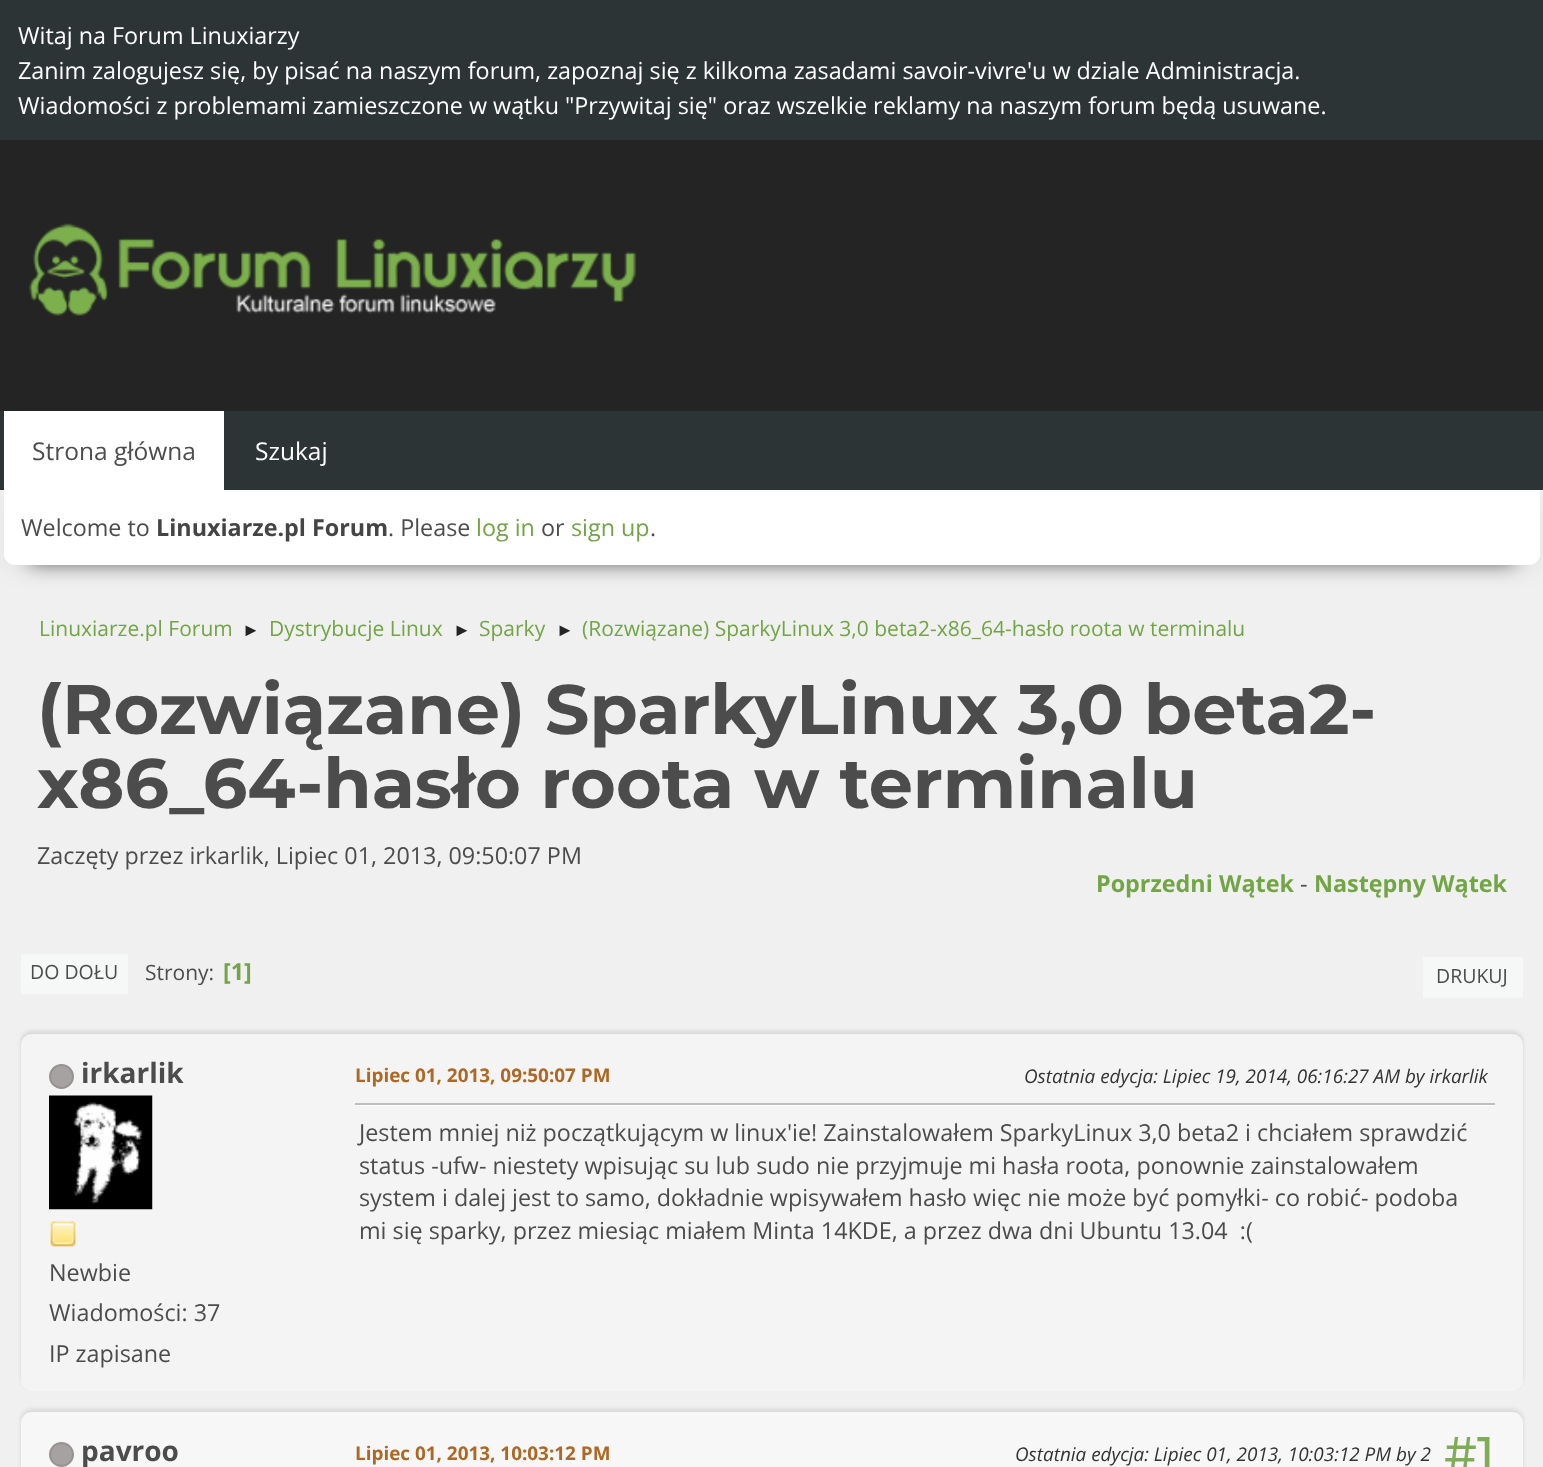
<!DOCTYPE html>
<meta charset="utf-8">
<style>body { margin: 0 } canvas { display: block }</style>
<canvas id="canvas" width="1543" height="1467"></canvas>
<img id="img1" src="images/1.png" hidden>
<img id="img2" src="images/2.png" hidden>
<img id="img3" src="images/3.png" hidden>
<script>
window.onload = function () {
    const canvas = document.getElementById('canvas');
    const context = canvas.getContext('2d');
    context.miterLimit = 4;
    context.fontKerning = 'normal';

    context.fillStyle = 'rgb(240, 240, 240)';
    context.fillRect(0, 0, 1543, 1467);
    context.fillStyle = 'rgb(45, 52, 54)';
    context.fillRect(0, 0, 1543, 140);
    context.fillStyle = 'rgb(36, 36, 36)';
    context.fillRect(0, 140, 1543, 271);
    context.drawImage(document.getElementById('img1'), 29, 223, 608, 93);
    context.fillStyle = 'rgba(0, 0, 0, 0.05)';
    context.filter = 'blur(10.5px)';
    context.beginPath();
    context.roundRect(4, 497, 1536, 75, 11);
    context.fill();
    context.filter = 'none';
    context.fillStyle = 'rgb(45, 52, 54)';
    context.fillRect(0, 411, 1543, 79);
    context.fillStyle = 'rgb(255, 255, 255)';
    context.fillRect(4, 411, 220, 79);
    context.fillStyle = 'rgba(1, 0, 0, 0.5)';
    context.filter = 'blur(9px)';
    context.beginPath();
    context.rect(30, 543, 1484, 22);
    context.fill();
    context.filter = 'none';
    context.fillStyle = 'rgb(255, 255, 255)';
    context.beginPath();
    context.roundRect(4, 490, 1536, 75, [0, 0, 11, 11]);
    context.fill();
    context.fillStyle = 'rgb(246, 248, 248)';
    context.fillRect(21, 954, 107, 40);
    context.fillRect(1423, 957, 100, 41);
    context.fillStyle = 'rgba(0, 0, 0, 0.1)';
    context.filter = 'blur(2px)';
    context.beginPath();
    context.roundRect(21, 1031, 1502, 357, 11);
    context.fill();
    context.filter = 'none';
    context.fillStyle = 'rgb(244, 244, 244)';
    context.beginPath();
    context.roundRect(21, 1034, 1502, 357, 11);
    context.fill();
    context.fillStyle = 'rgb(167, 162, 162)';
    context.beginPath();
    context.arc(61.5, 1076.5, 11.5, 0, 2 * Math.PI);
    context.fill();
    context.strokeStyle = 'rgb(150, 146, 146)';
    context.lineWidth = 2;
    context.stroke();
    context.drawImage(document.getElementById('img2'), 49, 1095, 104, 115);
    context.drawImage(document.getElementById('img3'), 50, 1221, 26, 26);
    context.fillStyle = 'rgb(255, 255, 255)';
    context.fillRect(355, 1105, 1140, 1);
    context.fillStyle = 'rgb(191, 191, 191)';
    context.fillRect(355, 1103, 1140, 2);
    context.fillStyle = 'rgba(0, 0, 0, 0.1)';
    context.filter = 'blur(2px)';
    context.beginPath();
    context.roundRect(21, 1409, 1502, 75, 11);
    context.fill();
    context.filter = 'none';
    context.fillStyle = 'rgb(247, 247, 247)';
    context.beginPath();
    context.roundRect(21, 1412, 1502, 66, 11);
    context.fill();
    context.fillStyle = 'rgb(167, 162, 162)';
    context.beginPath();
    context.arc(61.5, 1454.5, 11.5, 0, 2 * Math.PI);
    context.fill();
    context.stroke();
    context.font = '23.33px Open Sans';
    context.fillStyle = 'rgb(255, 255, 255)';
    context.fillText('Witaj na Forum Linuxiarzy', 18, 44);
    context.fillText('Zanim zalogujesz się, by pisać na naszym forum, zapoznaj się z kilkoma zasadami savoir-vivre\'u w dziale Administracja.', 18, 79);
    context.fillText('Wiadomości z problemami zamieszczone w wątku "Przywitaj się" oraz wszelkie reklamy na naszym forum będą usuwane.', 18, 114);
    context.font = '24.5px Open Sans';
    context.fillStyle = 'rgb(76, 76, 76)';
    context.fillText('Strona główna', 32, 460);
    context.fillStyle = 'rgb(255, 255, 255)';
    context.fillText('Szukaj', 255, 460);
    context.font = '23.33px Open Sans';
    context.fillStyle = 'rgb(76, 76, 76)';
    context.fillText('Welcome to', 21, 536);
    context.font = 'bold 23.33px Open Sans';
    context.fillStyle = 'rgb(68, 68, 68)';
    context.fillText('Linuxiarze.pl Forum', 156, 536);
    context.font = '23.33px Open Sans';
    context.fillStyle = 'rgb(76, 76, 76)';
    context.fillText('. Please', 388, 536);
    context.fillStyle = 'rgb(114, 165, 69)';
    context.fillText('log in', 476, 536);
    context.fillStyle = 'rgb(76, 76, 76)';
    context.fillText('or', 541, 536);
    context.fillStyle = 'rgb(114, 165, 69)';
    context.fillText('sign up', 571, 536);
    context.fillStyle = 'rgb(76, 76, 76)';
    context.fillText('.', 650, 536);
    context.font = '21px Open Sans';
    context.fillStyle = 'rgb(114, 165, 69)';
    context.fillText('Linuxiarze.pl Forum', 39, 636);
    context.font = '18px Liberation Sans';
    context.fillStyle = 'rgb(36, 36, 36)';
    context.fillText('►', 242, 636);
    context.font = '21px Open Sans';
    context.fillStyle = 'rgb(114, 165, 69)';
    context.fillText('Dystrybucje Linux', 269, 636);
    context.font = '18px Liberation Sans';
    context.fillStyle = 'rgb(36, 36, 36)';
    context.fillText('►', 453, 636);
    context.font = '21px Open Sans';
    context.fillStyle = 'rgb(114, 165, 69)';
    context.fillText('Sparky', 479, 636);
    context.font = '18px Liberation Sans';
    context.fillStyle = 'rgb(36, 36, 36)';
    context.fillText('►', 556, 636);
    context.font = '21px Open Sans';
    context.fillStyle = 'rgb(114, 165, 69)';
    context.fillText('(Rozwiązane) SparkyLinux 3,0 beta2-x86_64-hasło roota w terminalu', 582, 636);
    context.font = 'bold 70px Montserrat';
    context.fillStyle = 'rgb(76, 76, 76)';
    context.fillText('(Rozwiązane) SparkyLinux 3,0 beta2-', 37, 734);
    context.fillText('x86_64-hasło roota w terminalu', 37, 808);
    context.font = '23.33px Open Sans';
    context.fillText('Zaczęty przez irkarlik, Lipiec 01, 2013, 09:50:07 PM', 37, 864);
    context.font = 'bold 23.33px Open Sans';
    context.fillStyle = 'rgb(114, 165, 69)';
    context.fillText('Poprzedni Wątek', 1096, 892);
    context.font = '23.33px Open Sans';
    context.fillStyle = 'rgb(76, 76, 76)';
    context.fillText('-', 1300, 892);
    context.font = 'bold 23.33px Open Sans';
    context.fillStyle = 'rgb(114, 165, 69)';
    context.fillText('Następny Wątek', 1314, 892);
    context.font = '19.5px Open Sans';
    context.fillStyle = 'rgb(76, 76, 76)';
    context.fillText('DO DOŁU', 30, 979);
    context.font = '21px Open Sans';
    context.fillText('Strony:', 145, 980);
    context.font = 'bold 23.33px Open Sans';
    context.fillStyle = 'rgb(114, 165, 69)';
    context.fillText('[1]', 223, 980);
    context.font = '19.5px Open Sans';
    context.fillStyle = 'rgb(76, 76, 76)';
    context.fillText('DRUKUJ', 1436, 983);
    context.font = 'bold 28px Open Sans';
    context.fillText('irkarlik', 81, 1083);
    context.font = '23.33px Open Sans';
    context.fillText('Newbie', 49, 1281);
    context.fillText('Wiadomości: 37', 49, 1321);
    context.fillText('IP zapisane', 49, 1362);
    context.font = 'bold 18.9px Open Sans';
    context.fillStyle = 'rgb(173, 104, 37)';
    context.fillText('Lipiec 01, 2013, 09:50:07 PM', 355, 1082);
    context.font = 'italic 18.9px Open Sans';
    context.fillStyle = 'rgb(51, 51, 51)';
    context.fillText('Ostatnia edycja: Lipiec 19, 2014, 06:16:27 AM by irkarlik', 1024, 1083);
    context.font = '23.33px Open Sans';
    context.fillStyle = 'rgb(76, 76, 76)';
    context.fillText('Jestem mniej niż początkującym w linux\'ie! Zainstalowałem SparkyLinux 3,0 beta2 i chciałem sprawdzić', 359, 1141);
    context.fillText('status -ufw- niestety wpisując su lub sudo nie przyjmuje mi hasła roota, ponownie zainstalowałem', 359, 1174);
    context.fillText('system i dalej jest to samo, dokładnie wpisywałem hasło więc nie może być pomyłki- co robić- podoba', 359, 1206);
    context.fillText('mi się sparky, przez miesiąc miałem Minta 14KDE, a przez dwa dni Ubuntu 13.04  :(', 359, 1239);
    context.font = 'bold 28px Open Sans';
    context.fillText('pavroo', 81, 1461);
    context.font = 'bold 18.9px Open Sans';
    context.fillStyle = 'rgb(173, 104, 37)';
    context.fillText('Lipiec 01, 2013, 10:03:12 PM', 355, 1460);
    context.font = 'italic 18.9px Open Sans';
    context.fillStyle = 'rgb(51, 51, 51)';
    context.fillText('Ostatnia edycja: Lipiec 01, 2013, 10:03:12 PM by 2', 1015, 1461);
    context.font = '500 47px Montserrat';
    context.fillStyle = 'rgb(127, 173, 87)';
    context.fillText('#1', 1444, 1470);
};
</script>
